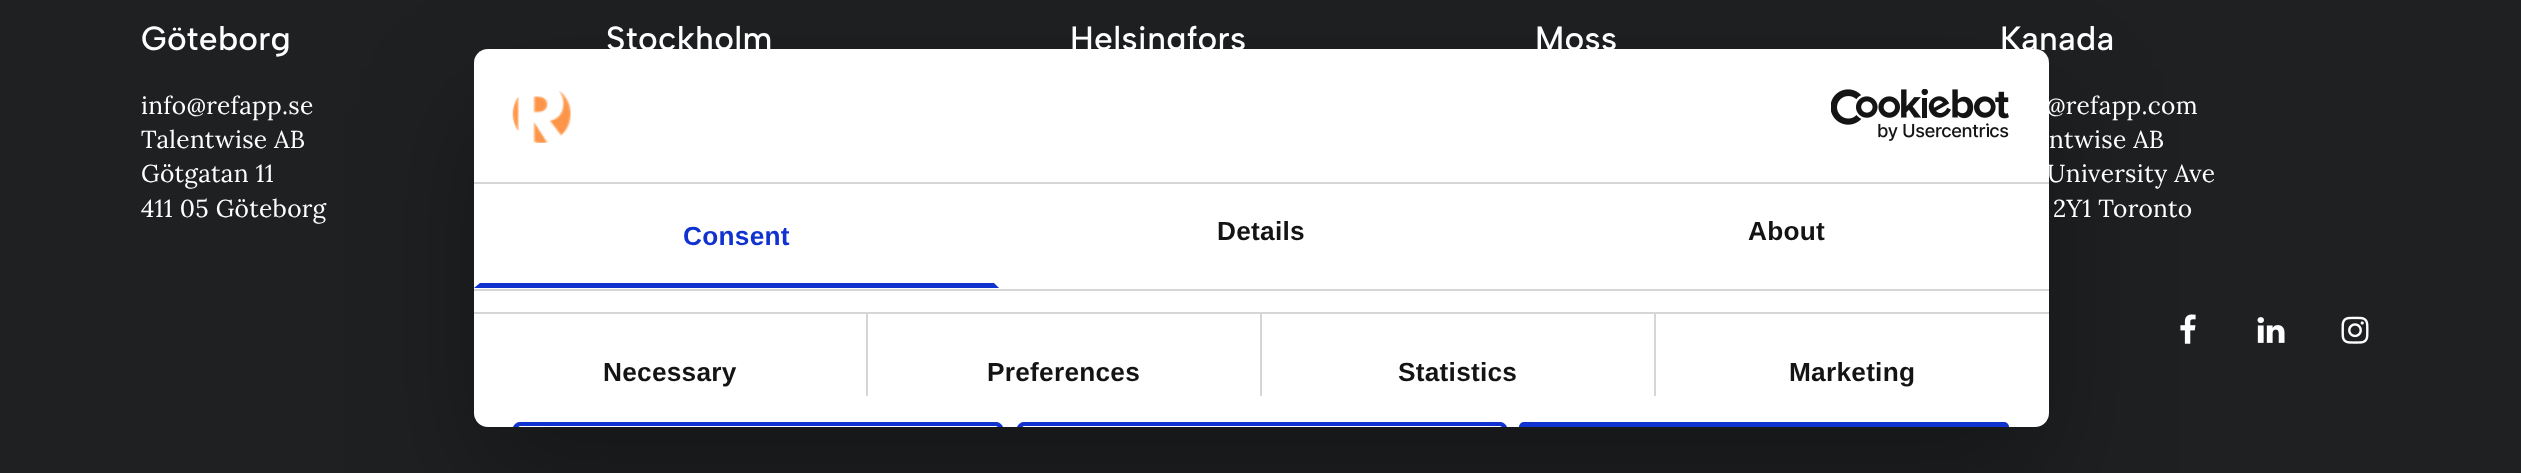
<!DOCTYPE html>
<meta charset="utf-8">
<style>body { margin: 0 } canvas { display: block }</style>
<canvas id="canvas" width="2521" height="473"></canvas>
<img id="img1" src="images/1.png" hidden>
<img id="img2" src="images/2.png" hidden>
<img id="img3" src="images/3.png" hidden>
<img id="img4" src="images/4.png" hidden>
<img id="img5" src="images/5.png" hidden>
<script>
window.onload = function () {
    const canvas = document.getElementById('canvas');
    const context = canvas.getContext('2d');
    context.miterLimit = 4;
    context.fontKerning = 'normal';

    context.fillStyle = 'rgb(30, 32, 34)';
    context.fillRect(0, 0, 2521, 473);
    context.drawImage(document.getElementById('img1'), 2180, 314, 16, 30);
    context.drawImage(document.getElementById('img2'), 2257, 317, 28, 26);
    context.drawImage(document.getElementById('img3'), 2341, 316, 28, 28);
    context.fillStyle = 'rgba(0, 0, 0, 0.3)';
    context.filter = 'blur(59.5px)';
    context.beginPath();
    context.roundRect(474, 105, 1575, 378, 14);
    context.fill();
    context.filter = 'none';
    context.fillStyle = 'rgb(255, 255, 255)';
    context.beginPath();
    context.roundRect(474, 49, 1575, 378, 14);
    context.fill();
    context.drawImage(document.getElementById('img4'), 512, 90, 59, 53);
    context.drawImage(document.getElementById('img5'), 1831, 89, 178, 52);
    context.fillStyle = 'rgb(214, 214, 214)';
    context.fillRect(474, 289, 1575, 2);
    context.fillStyle = 'rgb(16, 50, 207)';
    context.beginPath();
    context.moveTo(999, 288);
    context.lineTo(474, 288);
    context.lineTo(480, 283);
    context.lineTo(994, 283);
    context.closePath();
    context.fill();
    context.fillStyle = 'rgb(214, 214, 214)';
    context.fillRect(866, 313, 2, 83);
    context.fillRect(1260, 313, 2, 83);
    context.fillRect(1654, 313, 2, 83);
    context.fillRect(474, 312, 1575, 2);
    context.fillStyle = 'rgb(16, 50, 207)';
    context.beginPath();
    context.moveTo(520, 422);
    context.bezierCurveTo(517, 422, 514, 424, 513, 427);
    context.lineTo(518, 427);
    context.lineTo(520, 426);
    context.lineTo(996, 426);
    context.lineTo(998, 427);
    context.lineTo(1003, 427);
    context.bezierCurveTo(1002, 424, 999, 422, 996, 422);
    context.closePath();
    context.fill();
    context.beginPath();
    context.moveTo(1024, 422);
    context.bezierCurveTo(1021, 422, 1018, 424, 1017, 427);
    context.lineTo(1022, 427);
    context.lineTo(1024, 426);
    context.lineTo(1500, 426);
    context.lineTo(1502, 427);
    context.lineTo(1507, 427);
    context.bezierCurveTo(1506, 424, 1503, 422, 1500, 422);
    context.closePath();
    context.fill();
    context.beginPath();
    context.roundRect(1519, 422, 490, 5, [7, 7, 0, 0]);
    context.fill();
    context.beginPath();
    context.moveTo(1526, 422);
    context.bezierCurveTo(1523, 422, 1520, 424, 1519, 427);
    context.lineTo(1524, 427);
    context.lineTo(1526, 426);
    context.lineTo(2002, 426);
    context.lineTo(2004, 427);
    context.lineTo(2009, 427);
    context.bezierCurveTo(2008, 424, 2005, 422, 2002, 422);
    context.closePath();
    context.fill();
    context.letterSpacing = '0.3px';
    context.font = '500 33.5px Albert Sans';
    context.fillStyle = 'rgb(255, 255, 255)';
    context.fillText('Göteborg', 141, 50);
    context.font = '24.5px Lora';
    context.fillText('info@refapp.se', 141, 114);
    context.fillText('Talentwise AB', 141, 148);
    context.fillText('Götgatan 11', 141, 182);
    context.fillText('411 05 Göteborg', 141, 217);
    context.font = '500 33.5px Albert Sans';
    context.fillText('Stockholm', 606, 50);
    context.fillText('Helsingfors', 1070, 50);
    context.fillText('Moss', 1535, 50);
    context.fillText('Kanada', 2000, 50);
    context.font = '24.5px Lora';
    context.fillText('@refapp.com', 2046, 114);
    context.fillText('ntwise AB', 2049, 148);
    context.fillText('University Ave', 2047, 182);
    context.fillText('2Y1 Toronto', 2053, 217);
    context.fillStyle = 'rgb(214, 214, 214)';
    context.fillRect(474, 182, 1575, 2);
    context.letterSpacing = '0.25px';
    context.font = 'bold 26.25px Liberation Sans';
    context.fillStyle = 'rgb(16, 50, 207)';
    context.fillText('Consent', 683, 245);
    context.fillStyle = 'rgb(20, 20, 20)';
    context.fillText('Details', 1217, 240);
    context.fillText('About', 1748, 240);
    context.fillText('Necessary', 603, 381);
    context.fillText('Preferences', 987, 381);
    context.fillText('Statistics', 1398, 381);
    context.fillText('Marketing', 1789, 381);
};
</script>
